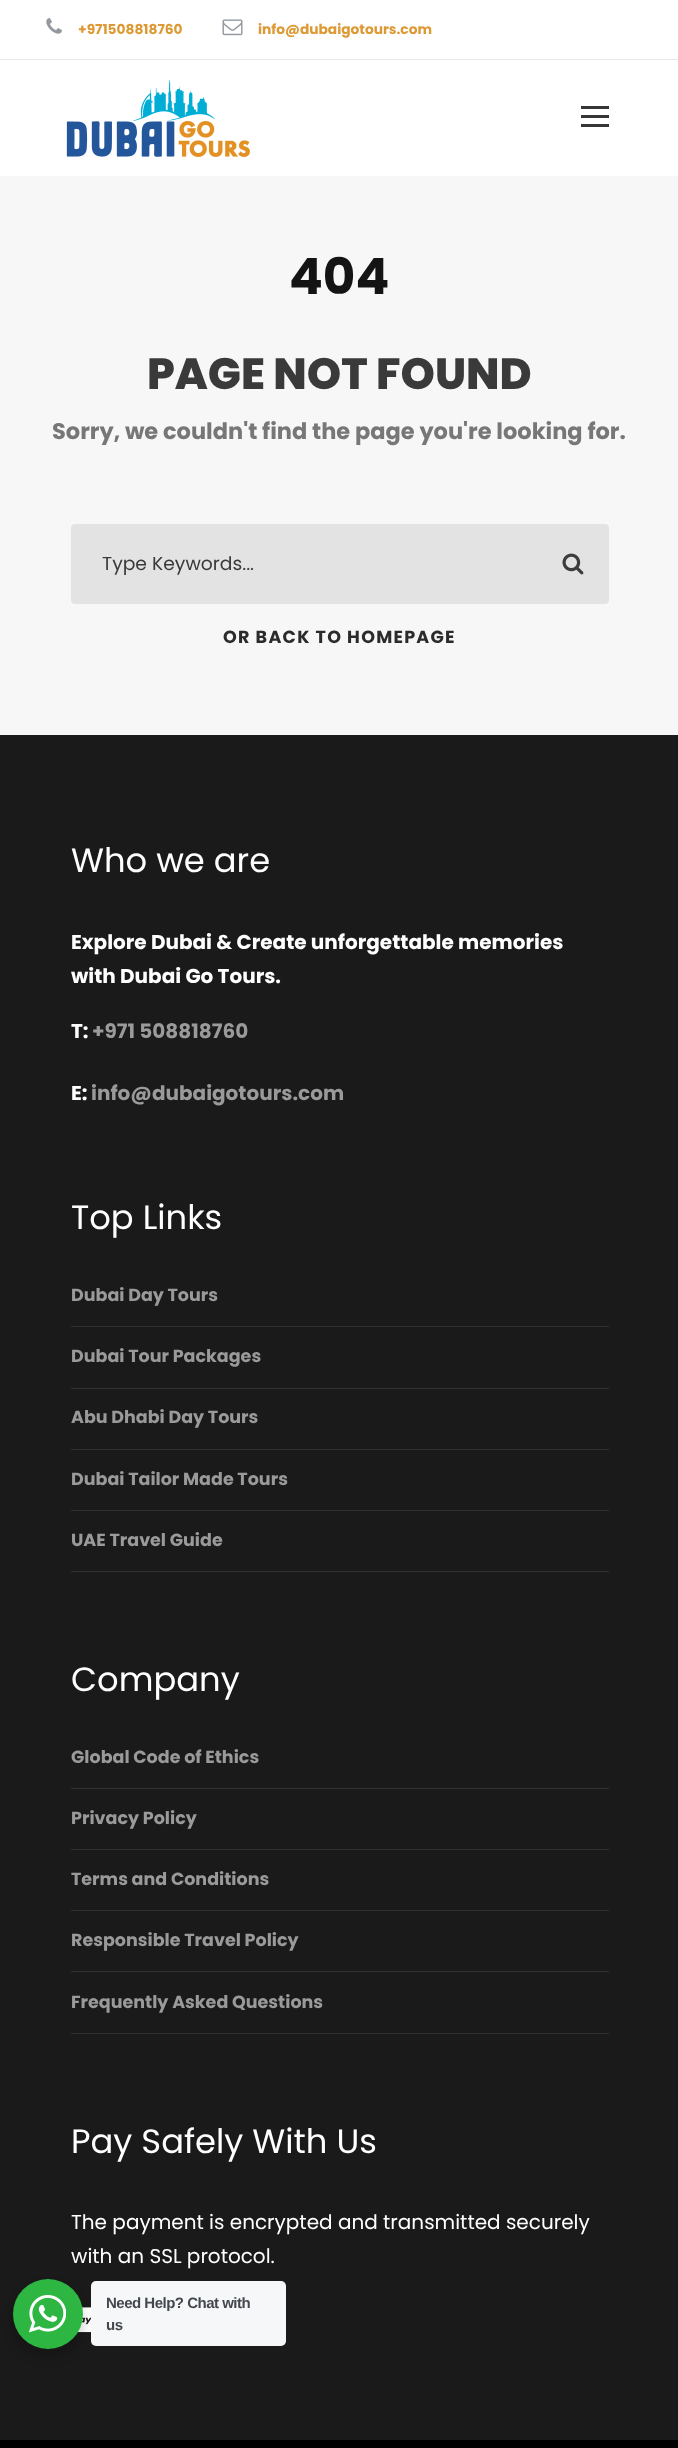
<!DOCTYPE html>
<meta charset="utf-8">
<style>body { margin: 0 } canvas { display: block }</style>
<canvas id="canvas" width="678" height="2448"></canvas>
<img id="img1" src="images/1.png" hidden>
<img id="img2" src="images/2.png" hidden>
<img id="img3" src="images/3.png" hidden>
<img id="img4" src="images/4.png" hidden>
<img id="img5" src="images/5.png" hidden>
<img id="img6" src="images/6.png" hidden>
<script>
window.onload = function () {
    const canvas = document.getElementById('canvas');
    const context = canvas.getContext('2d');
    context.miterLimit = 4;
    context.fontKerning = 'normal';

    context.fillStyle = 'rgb(255, 255, 255)';
    context.fillRect(0, 0, 678, 2448);
    context.fillStyle = 'rgb(233, 233, 233)';
    context.fillRect(0, 59, 678, 1);
    context.drawImage(document.getElementById('img1'), 46, 18, 16, 16);
    context.drawImage(document.getElementById('img2'), 222, 19, 21, 17);
    context.drawImage(document.getElementById('img3'), 66, 80, 184, 77);
    context.fillStyle = 'rgb(53, 53, 53)';
    context.fillRect(581, 106, 28, 3);
    context.fillRect(581, 115, 28, 3);
    context.fillRect(581, 124, 28, 3);
    context.fillStyle = 'rgb(247, 247, 247)';
    context.fillRect(0, 176, 678, 559);
    context.fillStyle = 'rgb(227, 227, 227)';
    context.beginPath();
    context.roundRect(71, 524, 538, 80, 4);
    context.fill();
    context.drawImage(document.getElementById('img4'), 562, 553, 22, 22);
    context.fillStyle = 'rgb(26, 26, 26)';
    context.fillRect(0, 735, 678, 1705);
    context.fillStyle = 'rgb(48, 48, 48)';
    context.fillRect(71, 1326, 538, 1);
    context.fillRect(71, 1388, 538, 1);
    context.fillRect(71, 1449, 538, 1);
    context.fillRect(71, 1510, 538, 1);
    context.fillRect(71, 1571, 538, 1);
    context.fillRect(71, 1788, 538, 1);
    context.fillRect(71, 1849, 538, 1);
    context.fillRect(71, 1910, 538, 1);
    context.fillRect(71, 1971, 538, 1);
    context.fillRect(71, 2033, 538, 1);
    context.drawImage(document.getElementById('img5'), 77, 2307, 14, 26);
    context.fillStyle = 'rgb(0, 0, 0)';
    context.fillRect(0, 2440, 678, 8);
    context.fillStyle = 'rgba(0, 0, 0, 0.14)';
    context.filter = 'blur(5px)';
    context.beginPath();
    context.roundRect(10, 2284, 75, 75, 37.5);
    context.fill();
    context.filter = 'none';
    context.fillStyle = 'rgb(45, 183, 66)';
    context.beginPath();
    context.arc(48, 2314, 35, 0, 2 * Math.PI);
    context.fill();
    context.drawImage(document.getElementById('img6'), 29, 2295, 37, 38);
    context.fillStyle = 'rgb(245, 247, 249)';
    context.beginPath();
    context.roundRect(91, 2281, 195, 65, 5);
    context.fill();
    context.font = 'bold 13.75px Poppins';
    context.fillStyle = 'rgb(221, 153, 51)';
    context.fillText('+971508818760', 78, 34);
    context.fillText('info@dubaigotours.com', 258, 34);
    context.font = 'bold 50px Poppins';
    context.fillStyle = 'rgb(20, 20, 20)';
    context.fillText('404', 289, 294);
    context.font = '800 43.75px Poppins';
    context.fillStyle = 'rgb(58, 58, 58)';
    context.fillText('PAGE NOT FOUND', 147, 389);
    context.font = 'bold 22.5px Poppins';
    context.fillStyle = 'rgb(119, 119, 119)';
    context.fillText('Sorry, we couldn\'t find the page you\'re looking for.', 52, 439);
    context.font = '18.75px Poppins';
    context.fillStyle = 'rgb(58, 58, 58)';
    context.fillText('Type Keywords...', 102, 570);
    context.letterSpacing = '1.25px';
    context.font = 'bold 17.5px Poppins';
    context.fillStyle = 'rgb(43, 43, 43)';
    context.fillText('OR BACK TO HOMEPAGE', 223, 643);
    context.letterSpacing = '0px';
    context.font = '33.75px Poppins';
    context.fillStyle = 'rgb(255, 255, 255)';
    context.fillText('Who we are', 71, 872);
    context.font = 'bold 20px Poppins';
    context.fillText('Explore Dubai & Create unforgettable memories', 71, 949);
    context.fillText('with Dubai Go Tours.', 71, 983);
    context.fillText('T:', 71, 1038);
    context.fillStyle = 'rgb(154, 154, 154)';
    context.fillText('+971 508818760', 92, 1038);
    context.fillStyle = 'rgb(255, 255, 255)';
    context.fillText('E:', 71, 1100);
    context.fillStyle = 'rgb(154, 154, 154)';
    context.fillText('info@dubaigotours.com', 91, 1100);
    context.font = '33.75px Poppins';
    context.fillStyle = 'rgb(255, 255, 255)';
    context.fillText('Top Links', 71, 1229);
    context.font = 'bold 17.5px Poppins';
    context.fillStyle = 'rgb(154, 154, 154)';
    context.fillText('Dubai Day Tours', 71, 1301);
    context.fillText('Dubai Tour Packages', 71, 1362);
    context.fillText('Abu Dhabi Day Tours', 71, 1423);
    context.fillText('Dubai Tailor Made Tours', 71, 1485);
    context.fillText('UAE Travel Guide', 71, 1546);
    context.font = '33.75px Poppins';
    context.fillStyle = 'rgb(255, 255, 255)';
    context.fillText('Company', 71, 1691);
    context.font = 'bold 17.5px Poppins';
    context.fillStyle = 'rgb(154, 154, 154)';
    context.fillText('Global Code of Ethics', 71, 1763);
    context.fillText('Privacy Policy', 71, 1824);
    context.fillText('Terms and Conditions', 71, 1885);
    context.fillText('Responsible Travel Policy', 71, 1946);
    context.fillText('Frequently Asked Questions', 71, 2008);
    context.font = '33.75px Poppins';
    context.fillStyle = 'rgb(255, 255, 255)';
    context.fillText('Pay Safely With Us', 71, 2153);
    context.font = '20px Poppins';
    context.fillText('The payment is encrypted and transmitted securely', 71, 2229);
    context.fillText('with an SSL protocol.', 71, 2263);
    context.letterSpacing = '-0.5px';
    context.font = 'bold 15px Liberation Sans';
    context.fillStyle = 'rgb(67, 71, 78)';
    context.fillText('Need Help? Chat with', 106, 2308);
    context.fillText('us', 106, 2330);
};
</script>
